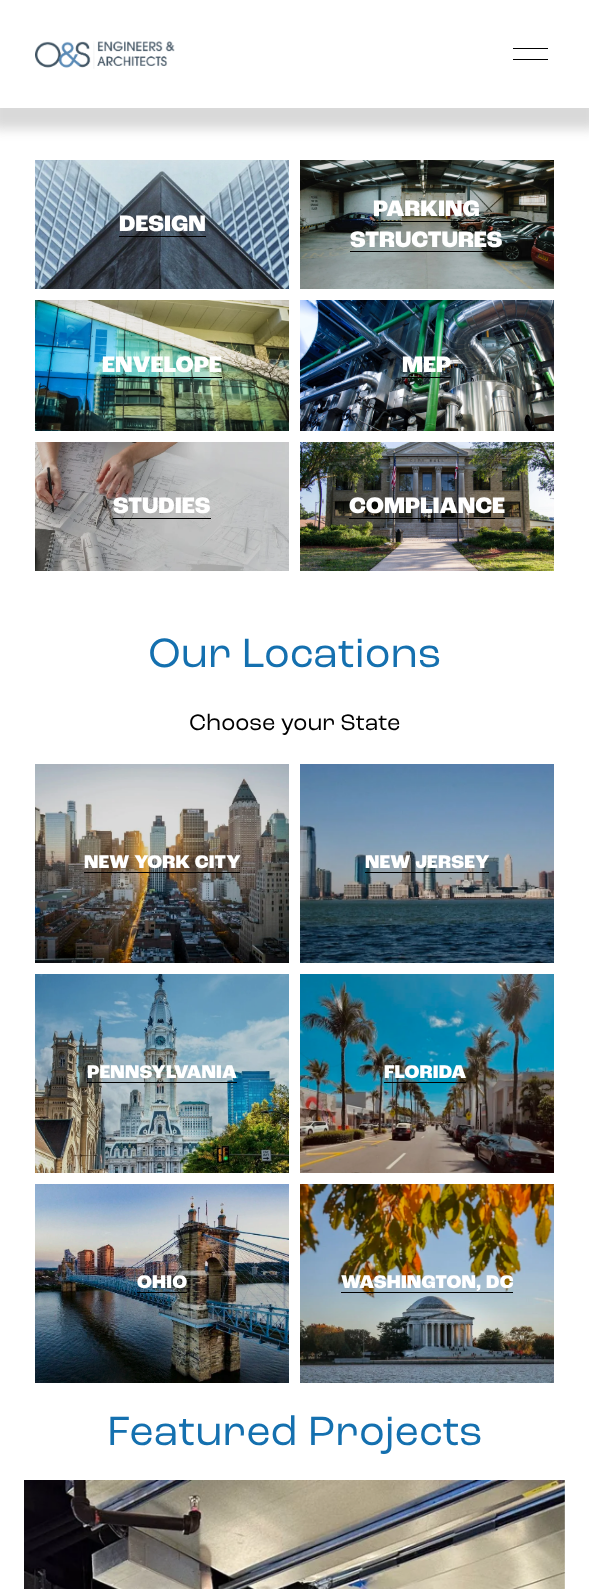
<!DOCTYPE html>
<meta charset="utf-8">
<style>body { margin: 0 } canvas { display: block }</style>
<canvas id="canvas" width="589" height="1589"></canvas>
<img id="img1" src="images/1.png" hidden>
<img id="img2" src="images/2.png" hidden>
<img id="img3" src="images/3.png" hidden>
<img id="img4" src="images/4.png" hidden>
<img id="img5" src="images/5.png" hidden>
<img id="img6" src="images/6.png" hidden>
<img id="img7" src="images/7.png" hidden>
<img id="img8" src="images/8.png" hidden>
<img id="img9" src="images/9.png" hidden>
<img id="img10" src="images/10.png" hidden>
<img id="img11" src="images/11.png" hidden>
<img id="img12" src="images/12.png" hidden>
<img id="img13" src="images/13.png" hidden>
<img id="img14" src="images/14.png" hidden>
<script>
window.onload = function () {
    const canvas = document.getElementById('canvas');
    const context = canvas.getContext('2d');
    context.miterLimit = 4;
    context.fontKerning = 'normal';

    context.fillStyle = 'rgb(255, 255, 255)';
    context.fillRect(0, 0, 589, 1589);
    context.save();
    context.beginPath();
    context.rect(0, 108, 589, 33);
    context.clip();
    context.fillStyle = 'rgb(217, 217, 217)';
    context.filter = 'blur(6px)';
    context.beginPath();
    context.rect(-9, 3, 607, 126);
    context.fill();
    context.filter = 'none';
    context.restore();
    context.drawImage(document.getElementById('img1'), 35, 41, 140, 28);
    context.fillStyle = 'rgb(0, 0, 0)';
    context.fillRect(513, 48, 35, 1);
    context.fillRect(513, 59, 35, 1);
    context.drawImage(document.getElementById('img2'), 35, 160, 254, 129);
    context.drawImage(document.getElementById('img3'), 300, 160, 254, 129);
    context.fillRect(119, 236, 87, 1);
    context.fillRect(373, 221, 107, 1);
    context.fillRect(350, 251, 153, 1);
    context.drawImage(document.getElementById('img4'), 35, 300, 254, 131);
    context.drawImage(document.getElementById('img5'), 300, 300, 254, 131);
    context.fillRect(102, 377, 120, 1);
    context.fillRect(402, 377, 49, 1);
    context.drawImage(document.getElementById('img6'), 35, 442, 254, 129);
    context.drawImage(document.getElementById('img7'), 300, 442, 254, 129);
    context.fillRect(113, 518, 98, 1);
    context.fillRect(349, 518, 156, 1);
    context.drawImage(document.getElementById('img8'), 35, 764, 254, 199);
    context.drawImage(document.getElementById('img9'), 300, 764, 254, 199);
    context.fillRect(84, 872, 156, 1);
    context.fillRect(365, 872, 124, 1);
    context.drawImage(document.getElementById('img10'), 35, 974, 254, 199);
    context.drawImage(document.getElementById('img11'), 300, 974, 254, 199);
    context.fillRect(87, 1082, 150, 1);
    context.fillRect(384, 1082, 82, 1);
    context.drawImage(document.getElementById('img12'), 35, 1184, 254, 199);
    context.drawImage(document.getElementById('img13'), 300, 1184, 254, 199);
    context.fillRect(137, 1292, 50, 1);
    context.fillRect(341, 1292, 172, 1);
    context.drawImage(document.getElementById('img14'), 24, 1480, 541, 109);
    context.font = '800 23.5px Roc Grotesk';
    context.fillStyle = 'rgb(255, 255, 255)';
    context.fillText('DESIGN', 119, 231);
    context.fillText('PARKING', 373, 216);
    context.fillText('STRUCTURES', 350, 247);
    context.fillText('ENVELOPE', 102, 372);
    context.fillText('MEP', 402, 372);
    context.fillText('STUDIES', 113, 513);
    context.fillText('COMPLIANCE', 349, 513);
    context.font = '43px Roc Grotesk';
    context.fillStyle = 'rgb(20, 112, 175)';
    context.fillText('Our Locations', 148, 667);
    context.font = '23.5px Roc Grotesk';
    context.fillStyle = 'rgb(0, 0, 0)';
    context.fillText('Choose your State', 189, 730);
    context.letterSpacing = '0.2px';
    context.font = '800 19.25px Roc Grotesk';
    context.fillStyle = 'rgb(255, 255, 255)';
    context.fillText('NEW YORK CITY', 84, 868);
    context.fillText('NEW JERSEY', 365, 868);
    context.fillText('PENNSYLVANIA', 87, 1078);
    context.fillText('FLORIDA', 384, 1078);
    context.fillText('OHIO', 137, 1288);
    context.fillText('WASHINGTON, DC', 341, 1288);
    context.letterSpacing = '0px';
    context.font = '43px Roc Grotesk';
    context.fillStyle = 'rgb(20, 112, 175)';
    context.fillText('Featured Projects', 107, 1445);
};
</script>
